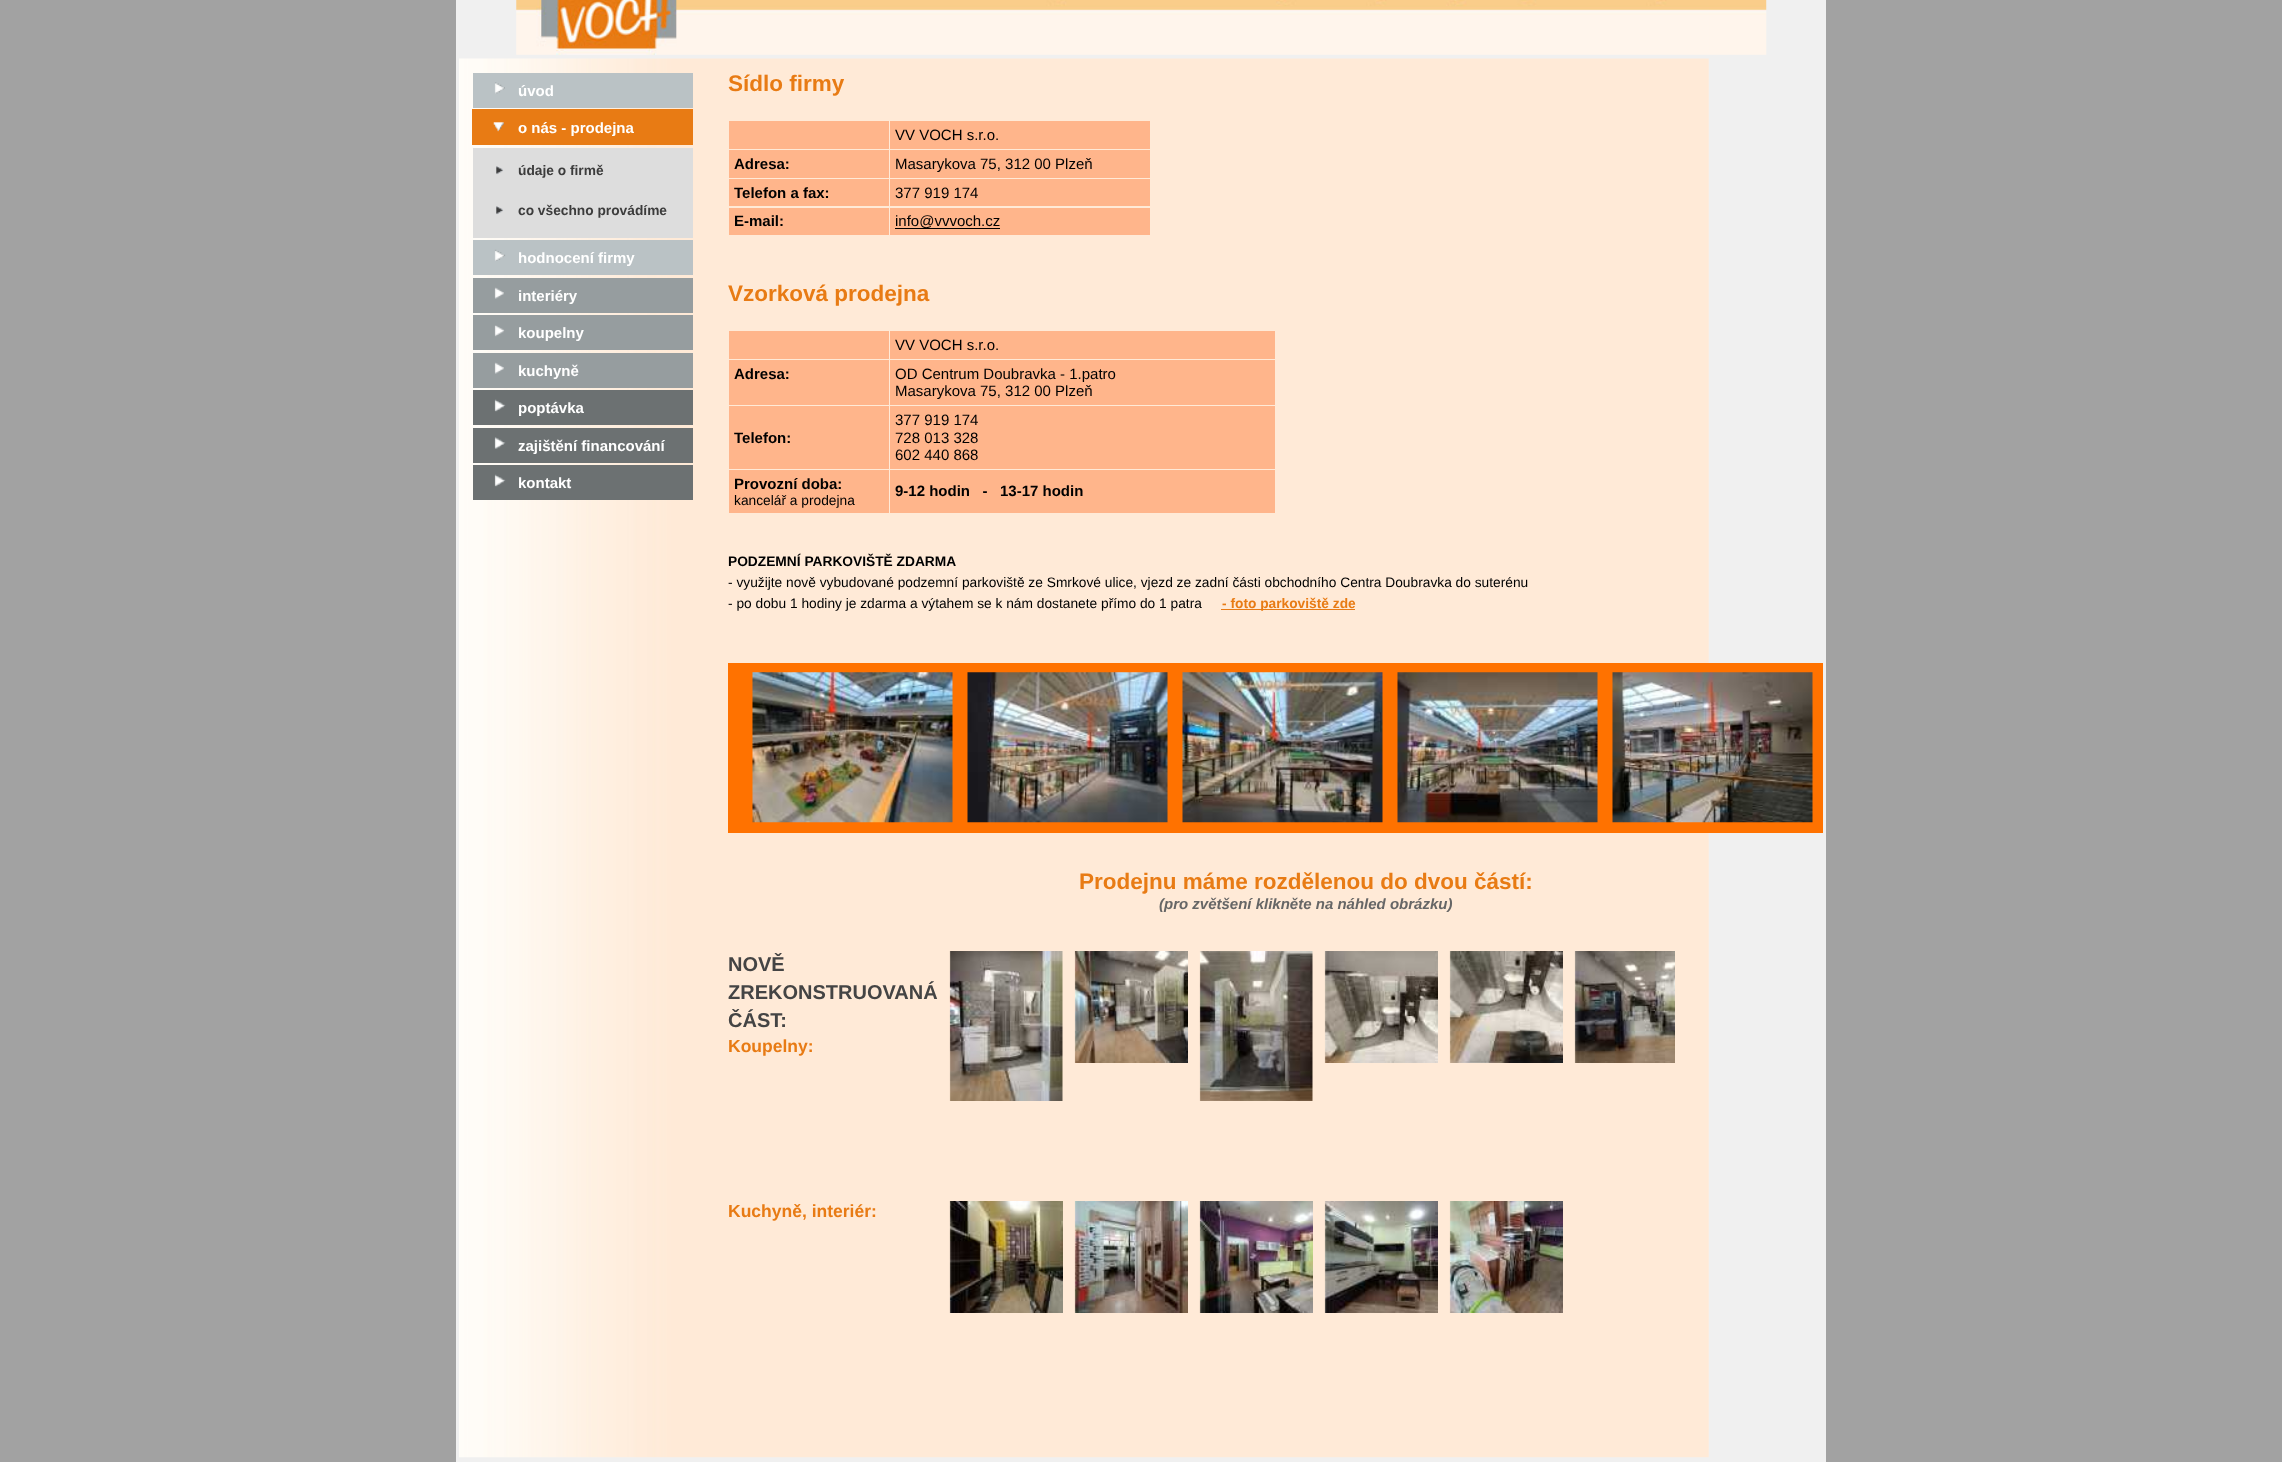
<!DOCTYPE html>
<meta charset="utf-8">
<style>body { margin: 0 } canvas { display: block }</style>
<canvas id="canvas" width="2282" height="1462"></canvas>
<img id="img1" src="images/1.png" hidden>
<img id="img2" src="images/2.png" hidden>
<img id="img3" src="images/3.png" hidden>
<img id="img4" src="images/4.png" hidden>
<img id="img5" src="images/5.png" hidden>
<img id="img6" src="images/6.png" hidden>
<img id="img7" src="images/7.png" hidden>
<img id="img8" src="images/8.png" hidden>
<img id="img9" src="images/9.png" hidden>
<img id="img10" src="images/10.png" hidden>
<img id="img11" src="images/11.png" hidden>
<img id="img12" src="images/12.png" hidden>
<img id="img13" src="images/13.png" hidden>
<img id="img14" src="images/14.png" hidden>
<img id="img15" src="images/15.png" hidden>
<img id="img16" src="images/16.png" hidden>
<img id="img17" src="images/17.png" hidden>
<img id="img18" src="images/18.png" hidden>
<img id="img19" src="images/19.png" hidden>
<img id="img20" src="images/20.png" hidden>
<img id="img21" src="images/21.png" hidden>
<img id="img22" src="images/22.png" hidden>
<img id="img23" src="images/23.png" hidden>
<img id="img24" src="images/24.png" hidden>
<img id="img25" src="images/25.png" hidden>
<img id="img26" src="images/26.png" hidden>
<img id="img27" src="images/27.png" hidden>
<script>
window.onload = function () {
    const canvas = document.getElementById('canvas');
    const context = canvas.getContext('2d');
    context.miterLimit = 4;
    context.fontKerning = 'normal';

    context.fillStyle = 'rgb(162, 162, 162)';
    context.fillRect(0, 0, 2282, 1462);
    context.fillStyle = 'rgb(240, 240, 240)';
    context.fillRect(456, 0, 1370, 1462);
    context.drawImage(document.getElementById('img1'), 516, 0, 1251, 55);
    context.drawImage(document.getElementById('img2'), 459, 58, 1250, 1400);
    context.fillStyle = 'rgb(186, 194, 197)';
    context.fillRect(473, 73, 220, 35);
    context.drawImage(document.getElementById('img3'), 494, 82, 11, 12);
    context.fillStyle = 'rgb(232, 123, 20)';
    context.fillRect(472, 109, 221, 36);
    context.drawImage(document.getElementById('img4'), 493, 122, 11, 10);
    context.fillStyle = 'rgb(221, 221, 221)';
    context.fillRect(473, 148, 220, 5);
    context.fillRect(473, 153, 220, 40);
    context.drawImage(document.getElementById('img5'), 496, 166, 8, 9);
    context.fillRect(473, 193, 220, 45);
    context.drawImage(document.getElementById('img6'), 496, 206, 8, 9);
    context.fillStyle = 'rgb(186, 194, 197)';
    context.fillRect(473, 240, 220, 35);
    context.drawImage(document.getElementById('img7'), 494, 249, 12, 12);
    context.fillStyle = 'rgb(150, 157, 159)';
    context.fillRect(473, 278, 220, 35);
    context.drawImage(document.getElementById('img8'), 494, 287, 10, 12);
    context.fillRect(473, 315, 220, 35);
    context.drawImage(document.getElementById('img9'), 494, 325, 11, 12);
    context.fillRect(473, 353, 220, 35);
    context.drawImage(document.getElementById('img8'), 494, 362, 10, 12);
    context.fillStyle = 'rgb(108, 113, 114)';
    context.fillRect(473, 390, 220, 35);
    context.drawImage(document.getElementById('img10'), 494, 399, 12, 13);
    context.fillRect(473, 428, 220, 35);
    context.drawImage(document.getElementById('img11'), 494, 437, 12, 12);
    context.fillRect(473, 465, 220, 35);
    context.drawImage(document.getElementById('img10'), 494, 474, 12, 13);
    context.fillStyle = 'rgb(255, 181, 139)';
    context.fillRect(729, 121, 160, 28);
    context.fillRect(890, 121, 260, 28);
    context.fillRect(729, 150, 160, 28);
    context.fillRect(890, 150, 260, 28);
    context.fillRect(729, 179, 160, 27);
    context.fillRect(890, 179, 260, 27);
    context.fillRect(729, 208, 160, 27);
    context.fillRect(890, 208, 260, 27);
    context.fillStyle = 'rgb(0, 0, 0)';
    context.fillRect(895, 228, 105, 1);
    context.fillStyle = 'rgb(255, 181, 139)';
    context.fillRect(729, 331, 160, 28);
    context.fillRect(890, 331, 385, 28);
    context.fillRect(729, 360, 160, 45);
    context.fillRect(890, 360, 385, 45);
    context.fillRect(729, 406, 160, 63);
    context.fillRect(890, 406, 385, 63);
    context.fillRect(729, 470, 160, 43);
    context.fillRect(890, 470, 385, 43);
    context.fillStyle = 'rgb(232, 123, 20)';
    context.fillRect(1221, 609, 134, 1);
    context.fillStyle = 'rgb(255, 114, 0)';
    context.fillRect(728, 663, 1095, 170);
    context.drawImage(document.getElementById('img12'), 752, 672, 201, 151);
    context.drawImage(document.getElementById('img13'), 967, 672, 201, 151);
    context.drawImage(document.getElementById('img14'), 1182, 672, 201, 151);
    context.drawImage(document.getElementById('img15'), 1397, 672, 201, 151);
    context.drawImage(document.getElementById('img16'), 1612, 672, 201, 151);
    context.drawImage(document.getElementById('img17'), 949, 951, 114, 150);
    context.drawImage(document.getElementById('img18'), 1074, 951, 114, 112);
    context.drawImage(document.getElementById('img19'), 1199, 951, 114, 150);
    context.drawImage(document.getElementById('img20'), 1324, 951, 114, 112);
    context.drawImage(document.getElementById('img21'), 1449, 951, 114, 112);
    context.drawImage(document.getElementById('img22'), 1574, 951, 101, 112);
    context.drawImage(document.getElementById('img23'), 949, 1201, 114, 112);
    context.drawImage(document.getElementById('img24'), 1074, 1201, 114, 112);
    context.drawImage(document.getElementById('img25'), 1199, 1201, 114, 112);
    context.drawImage(document.getElementById('img26'), 1324, 1201, 114, 112);
    context.drawImage(document.getElementById('img27'), 1449, 1201, 114, 112);
    context.font = 'bold 15px Liberation Sans';
    context.fillStyle = 'rgb(255, 255, 255)';
    context.fillText('úvod', 518, 96);
    context.fillText('o nás - prodejna', 518, 133);
    context.font = 'bold 13.75px Liberation Sans';
    context.fillStyle = 'rgb(60, 60, 60)';
    context.fillText('údaje o firmě', 518, 175);
    context.fillText('co všechno provádíme', 518, 215);
    context.font = 'bold 15px Liberation Sans';
    context.fillStyle = 'rgb(255, 255, 255)';
    context.fillText('hodnocení firmy', 518, 263);
    context.fillText('interiéry', 518, 301);
    context.fillText('koupelny', 518, 338);
    context.fillText('kuchyně', 518, 376);
    context.fillText('poptávka', 518, 413);
    context.fillText('zajištění financování', 518, 451);
    context.fillText('kontakt', 518, 488);
    context.font = 'bold 22.5px Liberation Sans';
    context.fillStyle = 'rgb(232, 123, 20)';
    context.fillText('Sídlo firmy', 728, 91);
    context.font = '15px Liberation Sans';
    context.fillStyle = 'rgb(0, 0, 0)';
    context.fillText('VV VOCH s.r.o.', 895, 140);
    context.font = 'bold 15px Liberation Sans';
    context.fillText('Adresa:', 734, 169);
    context.font = '15px Liberation Sans';
    context.fillText('Masarykova 75, 312 00 Plzeň', 895, 169);
    context.font = 'bold 15px Liberation Sans';
    context.fillText('Telefon a fax:', 734, 198);
    context.font = '15px Liberation Sans';
    context.fillText('377 919 174', 895, 198);
    context.font = 'bold 15px Liberation Sans';
    context.fillText('E-mail:', 734, 226);
    context.font = '15px Liberation Sans';
    context.fillText('info@vvvoch.cz', 895, 226);
    context.font = 'bold 22.5px Liberation Sans';
    context.fillStyle = 'rgb(232, 123, 20)';
    context.fillText('Vzorková prodejna', 728, 301);
    context.font = '15px Liberation Sans';
    context.fillStyle = 'rgb(0, 0, 0)';
    context.fillText('VV VOCH s.r.o.', 895, 350);
    context.font = 'bold 15px Liberation Sans';
    context.fillText('Adresa:', 734, 379);
    context.font = '15px Liberation Sans';
    context.fillText('OD Centrum Doubravka - 1.patro', 895, 379);
    context.fillText('Masarykova 75, 312 00 Plzeň', 895, 396);
    context.font = 'bold 15px Liberation Sans';
    context.fillText('Telefon:', 734, 443);
    context.font = '15px Liberation Sans';
    context.fillText('377 919 174', 895, 425);
    context.fillText('728 013 328', 895, 443);
    context.fillText('602 440 868', 895, 460);
    context.font = 'bold 15px Liberation Sans';
    context.fillText('Provozní doba:', 734, 489);
    context.font = '13.75px Liberation Sans';
    context.fillText('kancelář a prodejna', 734, 505);
    context.font = 'bold 15px Liberation Sans';
    context.fillText('9-12 hodin   -   13-17 hodin', 895, 496);
    context.font = 'bold 13.75px Liberation Sans';
    context.fillText('PODZEMNÍ PARKOVIŠTĚ ZDARMA', 728, 566);
    context.font = '13.75px Liberation Sans';
    context.fillText('- využijte nově vybudované podzemní parkoviště ze Smrkové ulice, vjezd ze zadní části obchodního Centra Doubravka do suterénu', 728, 587);
    context.fillText('- po dobu 1 hodiny je zdarma a výtahem se k nám dostanete přímo do 1 patra', 728, 608);
    context.font = 'bold 13.75px Liberation Sans';
    context.fillStyle = 'rgb(232, 123, 20)';
    context.fillText('- foto parkoviště zde', 1222, 608);
    context.font = 'bold 22.5px Liberation Sans';
    context.fillText('Prodejnu máme rozdělenou do dvou částí:', 1079, 889);
    context.font = 'italic bold 15px Liberation Sans';
    context.fillStyle = 'rgb(102, 102, 102)';
    context.fillText('(pro zvětšení klikněte na náhled obrázku)', 1159, 909);
    context.font = 'bold 20px Liberation Sans';
    context.fillStyle = 'rgb(68, 68, 68)';
    context.fillText('NOVĚ', 728, 971);
    context.fillText('ZREKONSTRUOVANÁ', 728, 999);
    context.fillText('ČÁST:', 728, 1027);
    context.font = 'bold 17.5px Liberation Sans';
    context.fillStyle = 'rgb(232, 123, 20)';
    context.fillText('Koupelny:', 728, 1052);
    context.fillText('Kuchyně, interiér:', 728, 1217);
};
</script>
